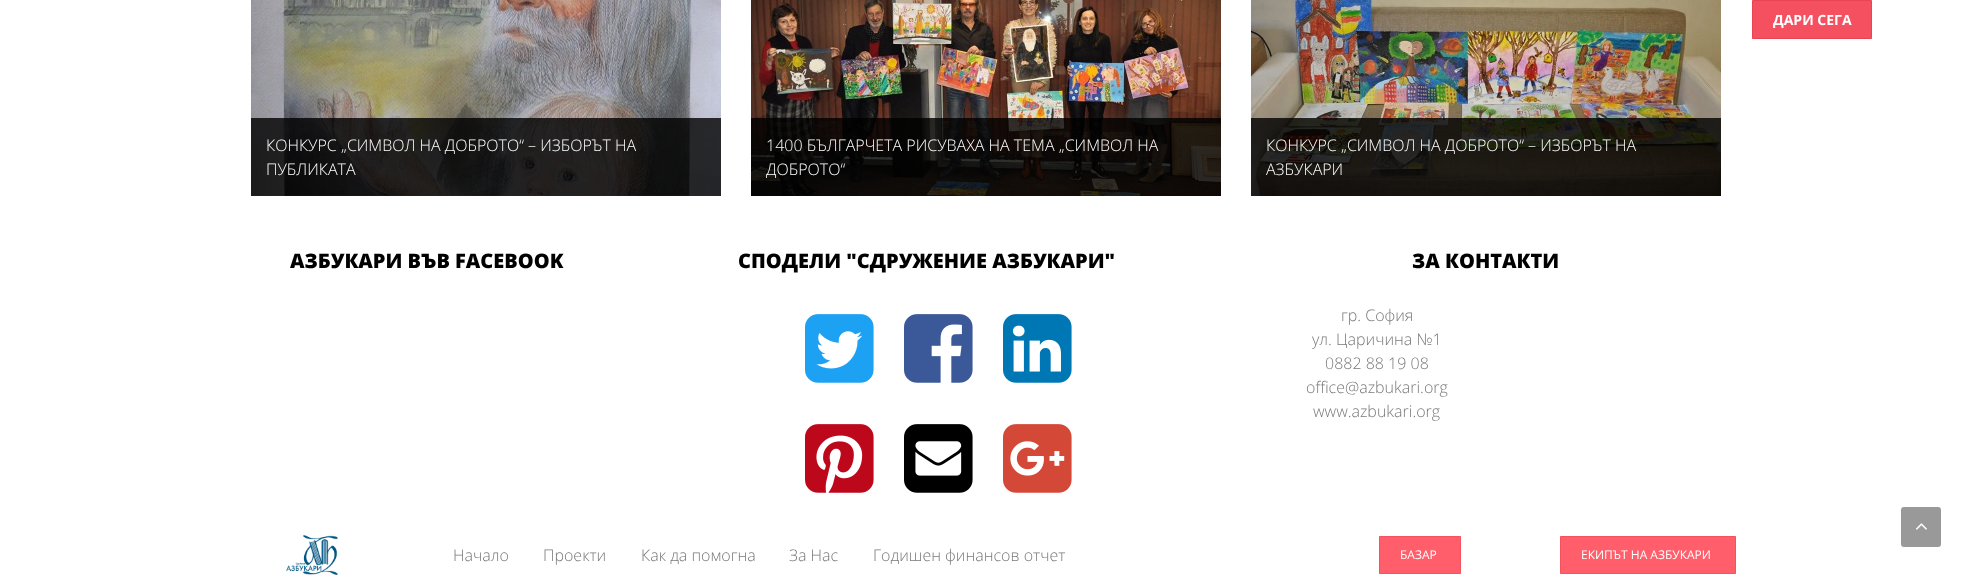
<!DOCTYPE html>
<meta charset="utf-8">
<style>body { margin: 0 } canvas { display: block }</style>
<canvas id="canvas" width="1971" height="577"></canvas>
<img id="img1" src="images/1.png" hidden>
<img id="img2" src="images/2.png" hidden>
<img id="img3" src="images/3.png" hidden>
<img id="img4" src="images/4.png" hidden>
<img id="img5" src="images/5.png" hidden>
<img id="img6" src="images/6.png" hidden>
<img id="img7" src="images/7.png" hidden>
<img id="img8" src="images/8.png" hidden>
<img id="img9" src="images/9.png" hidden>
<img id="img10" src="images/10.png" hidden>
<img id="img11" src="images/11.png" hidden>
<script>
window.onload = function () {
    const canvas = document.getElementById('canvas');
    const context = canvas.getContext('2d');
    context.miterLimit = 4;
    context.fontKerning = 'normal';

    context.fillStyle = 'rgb(255, 255, 255)';
    context.fillRect(0, 0, 1971, 577);
    context.fillStyle = 'rgb(244, 80, 96)';
    context.beginPath();
    context.rect(1752.5, 0.5, 119, 38);
    context.fill();
    context.strokeStyle = 'rgb(232, 68, 84)';
    context.stroke();
    context.drawImage(document.getElementById('img1'), 251, 0, 470, 196);
    context.fillStyle = 'rgba(0, 0, 0, 0.8)';
    context.fillRect(251, 118, 470, 78);
    context.drawImage(document.getElementById('img2'), 751, 0, 470, 196);
    context.fillRect(751, 118, 470, 78);
    context.drawImage(document.getElementById('img3'), 1251, 0, 470, 196);
    context.fillRect(1251, 118, 470, 78);
    context.drawImage(document.getElementById('img4'), 805, 314, 69, 69);
    context.drawImage(document.getElementById('img5'), 904, 314, 69, 69);
    context.drawImage(document.getElementById('img6'), 1003, 314, 69, 69);
    context.drawImage(document.getElementById('img7'), 805, 424, 69, 69);
    context.drawImage(document.getElementById('img8'), 904, 424, 69, 69);
    context.drawImage(document.getElementById('img9'), 1003, 424, 69, 69);
    context.drawImage(document.getElementById('img10'), 286, 535, 52, 40);
    context.fillStyle = 'rgb(255, 94, 106)';
    context.beginPath();
    context.rect(1379.5, 536.5, 81, 37);
    context.fill();
    context.strokeStyle = 'rgb(243, 82, 94)';
    context.stroke();
    context.beginPath();
    context.rect(1560.5, 536.5, 175, 37);
    context.fill();
    context.stroke();
    context.fillStyle = 'rgb(153, 153, 153)';
    context.beginPath();
    context.roundRect(1901, 507, 40, 40, 3);
    context.fill();
    context.drawImage(document.getElementById('img11'), 1916, 523, 11, 7);
    context.font = 'bold 14px Open Sans';
    context.fillStyle = 'rgb(255, 255, 255)';
    context.fillText('ДАРИ СЕГА', 1773, 25);
    context.font = '300 16px Open Sans';
    context.fillText('КОНКУРС „СИМВОЛ НА ДОБРОТО“ – ИЗБОРЪТ НА', 266, 151);
    context.fillText('ПУБЛИКАТА', 266, 175);
    context.fillText('1400 БЪЛГАРЧЕТА РИСУВАХА НА ТЕМА „СИМВОЛ НА', 766, 151);
    context.fillText('ДОБРОТО“', 766, 175);
    context.fillText('КОНКУРС „СИМВОЛ НА ДОБРОТО“ – ИЗБОРЪТ НА', 1266, 151);
    context.fillText('АЗБУКАРИ', 1266, 175);
    context.font = '800 20px Open Sans';
    context.fillStyle = 'rgb(0, 0, 0)';
    context.fillText('АЗБУКАРИ ВЪВ FACEBOOK', 290, 268);
    context.fillText('СПОДЕЛИ "СДРУЖЕНИЕ АЗБУКАРИ"', 738, 268);
    context.fillText('ЗА КОНТАКТИ', 1412, 268);
    context.font = '300 16px Open Sans';
    context.fillStyle = 'rgb(121, 121, 121)';
    context.fillText('гр. София', 1341, 321);
    context.fillText('ул. Царичина №1', 1312, 345);
    context.fillText('0882 88 19 08', 1325, 369);
    context.fillText('office@azbukari.org', 1306, 393);
    context.fillText('www.azbukari.org', 1313, 417);
    context.fillText('Начало', 453, 561);
    context.fillText('Проекти', 543, 561);
    context.fillText('Как да помогна', 641, 561);
    context.fillText('За Нас', 789, 561);
    context.fillText('Годишен финансов отчет', 873, 561);
    context.font = '12px Open Sans';
    context.fillStyle = 'rgb(255, 255, 255)';
    context.fillText('БАЗАР', 1400, 559);
    context.fillText('ЕКИПЪТ НА АЗБУКАРИ', 1581, 559);
};
</script>
